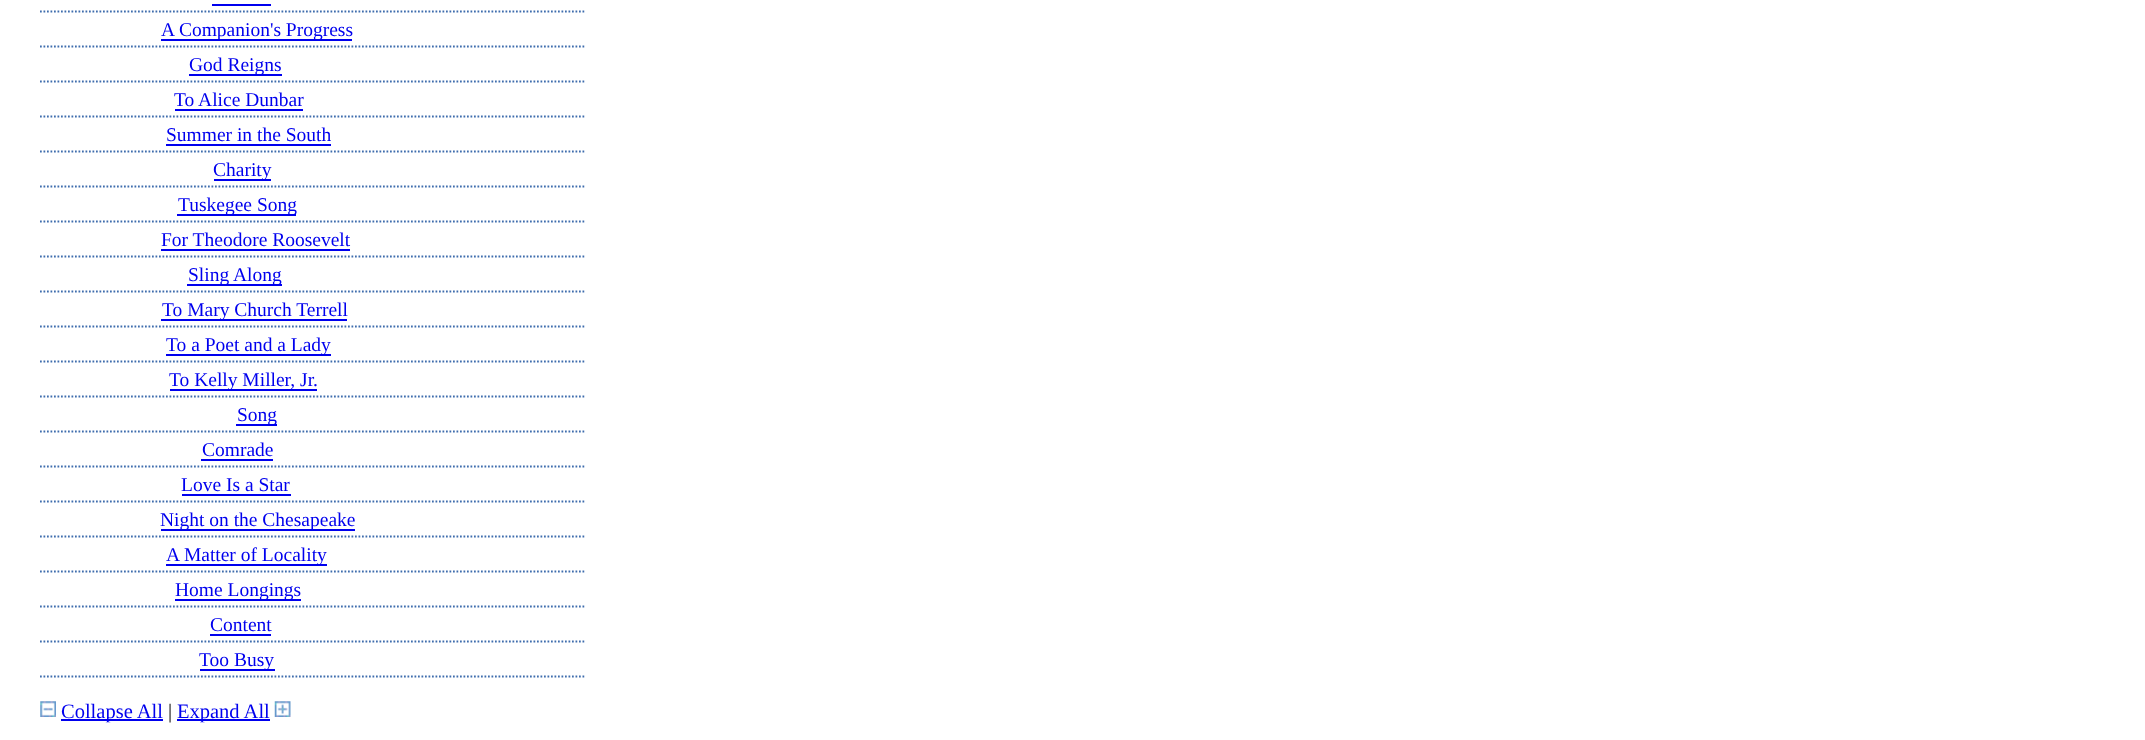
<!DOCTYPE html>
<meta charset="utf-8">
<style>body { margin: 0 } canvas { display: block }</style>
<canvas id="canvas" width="2145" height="740"></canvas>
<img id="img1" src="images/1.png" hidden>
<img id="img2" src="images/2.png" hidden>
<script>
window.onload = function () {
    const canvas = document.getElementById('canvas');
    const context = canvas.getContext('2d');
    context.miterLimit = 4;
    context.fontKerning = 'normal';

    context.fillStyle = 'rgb(255, 255, 255)';
    context.fillRect(0, 0, 2145, 740);
    context.beginPath();
    context.moveTo(40, 11.5);
    context.lineTo(584.5, 11.5);
    context.strokeStyle = 'rgb(63, 109, 173)';
    context.lineWidth = 1.8;
    context.setLineDash([1.75, 1.75]);
    context.stroke();
    context.fillStyle = 'rgb(0, 0, 238)';
    context.fillRect(212, 4, 59, 2);
    context.beginPath();
    context.moveTo(40, 46.5);
    context.lineTo(584.5, 46.5);
    context.stroke();
    context.fillRect(161, 39, 191, 2);
    context.beginPath();
    context.moveTo(40, 81.5);
    context.lineTo(584.5, 81.5);
    context.stroke();
    context.fillRect(189, 74, 93, 2);
    context.beginPath();
    context.moveTo(40, 116.5);
    context.lineTo(584.5, 116.5);
    context.stroke();
    context.fillRect(175, 109, 128, 2);
    context.beginPath();
    context.moveTo(40, 151.5);
    context.lineTo(584.5, 151.5);
    context.stroke();
    context.fillRect(166, 144, 165, 2);
    context.beginPath();
    context.moveTo(40, 186.5);
    context.lineTo(584.5, 186.5);
    context.stroke();
    context.fillRect(214, 179, 57, 2);
    context.beginPath();
    context.moveTo(40, 221.5);
    context.lineTo(584.5, 221.5);
    context.stroke();
    context.fillRect(177, 214, 119, 2);
    context.beginPath();
    context.moveTo(40, 256.5);
    context.lineTo(584.5, 256.5);
    context.stroke();
    context.fillRect(161, 249, 189, 2);
    context.beginPath();
    context.moveTo(40, 291.5);
    context.lineTo(584.5, 291.5);
    context.stroke();
    context.fillRect(187, 284, 95, 2);
    context.beginPath();
    context.moveTo(40, 326.5);
    context.lineTo(584.5, 326.5);
    context.stroke();
    context.fillRect(161, 319, 186, 2);
    context.beginPath();
    context.moveTo(40, 361.5);
    context.lineTo(584.5, 361.5);
    context.stroke();
    context.fillRect(166, 354, 165, 2);
    context.beginPath();
    context.moveTo(40, 396.5);
    context.lineTo(584.5, 396.5);
    context.stroke();
    context.fillRect(170, 389, 147, 2);
    context.beginPath();
    context.moveTo(40, 431.5);
    context.lineTo(584.5, 431.5);
    context.stroke();
    context.fillRect(236, 424, 41, 2);
    context.beginPath();
    context.moveTo(40, 466.5);
    context.lineTo(584.5, 466.5);
    context.stroke();
    context.fillRect(201, 459, 72, 2);
    context.beginPath();
    context.moveTo(40, 501.5);
    context.lineTo(584.5, 501.5);
    context.stroke();
    context.fillRect(182, 494, 109, 2);
    context.beginPath();
    context.moveTo(40, 536.5);
    context.lineTo(584.5, 536.5);
    context.stroke();
    context.fillRect(161, 529, 194, 2);
    context.beginPath();
    context.moveTo(40, 571.5);
    context.lineTo(584.5, 571.5);
    context.stroke();
    context.fillRect(166, 564, 161, 2);
    context.beginPath();
    context.moveTo(40, 606.5);
    context.lineTo(584.5, 606.5);
    context.stroke();
    context.fillRect(175, 599, 126, 2);
    context.beginPath();
    context.moveTo(40, 641.5);
    context.lineTo(584.5, 641.5);
    context.stroke();
    context.fillRect(210, 634, 61, 2);
    context.beginPath();
    context.moveTo(40, 676.5);
    context.lineTo(584.5, 676.5);
    context.stroke();
    context.fillRect(200, 669, 75, 2);
    context.drawImage(document.getElementById('img1'), 40, 701, 16, 16);
    context.fillRect(61, 719, 102, 2);
    context.fillRect(177, 719, 93, 2);
    context.drawImage(document.getElementById('img2'), 274, 701, 17, 16);
    context.font = '19.5px Liberation Serif';
    context.fillText('A Companion\'s Progress', 161, 36);
    context.fillText('God Reigns', 189, 71);
    context.fillText('To Alice Dunbar', 174, 106);
    context.fillText('Summer in the South', 166, 141);
    context.fillText('Charity', 213, 176);
    context.fillText('Tuskegee Song', 178, 211);
    context.fillText('For Theodore Roosevelt', 161, 246);
    context.fillText('Sling Along', 188, 281);
    context.fillText('To Mary Church Terrell', 162, 316);
    context.fillText('To a Poet and a Lady', 166, 351);
    context.fillText('To Kelly Miller, Jr.', 169, 386);
    context.fillText('Song', 237, 421);
    context.fillText('Comrade', 202, 456);
    context.fillText('Love Is a Star', 181, 491);
    context.fillText('Night on the Chesapeake', 160, 526);
    context.fillText('A Matter of Locality', 166, 561);
    context.fillText('Home Longings', 175, 596);
    context.fillText('Content', 210, 631);
    context.fillText('Too Busy', 199, 666);
    context.font = '20.5px Liberation Serif';
    context.fillText('Collapse All', 61, 718);
    context.fillStyle = 'rgb(0, 0, 0)';
    context.fillText('|', 168, 718);
    context.fillStyle = 'rgb(0, 0, 238)';
    context.fillText('Expand All', 177, 718);
};
</script>
